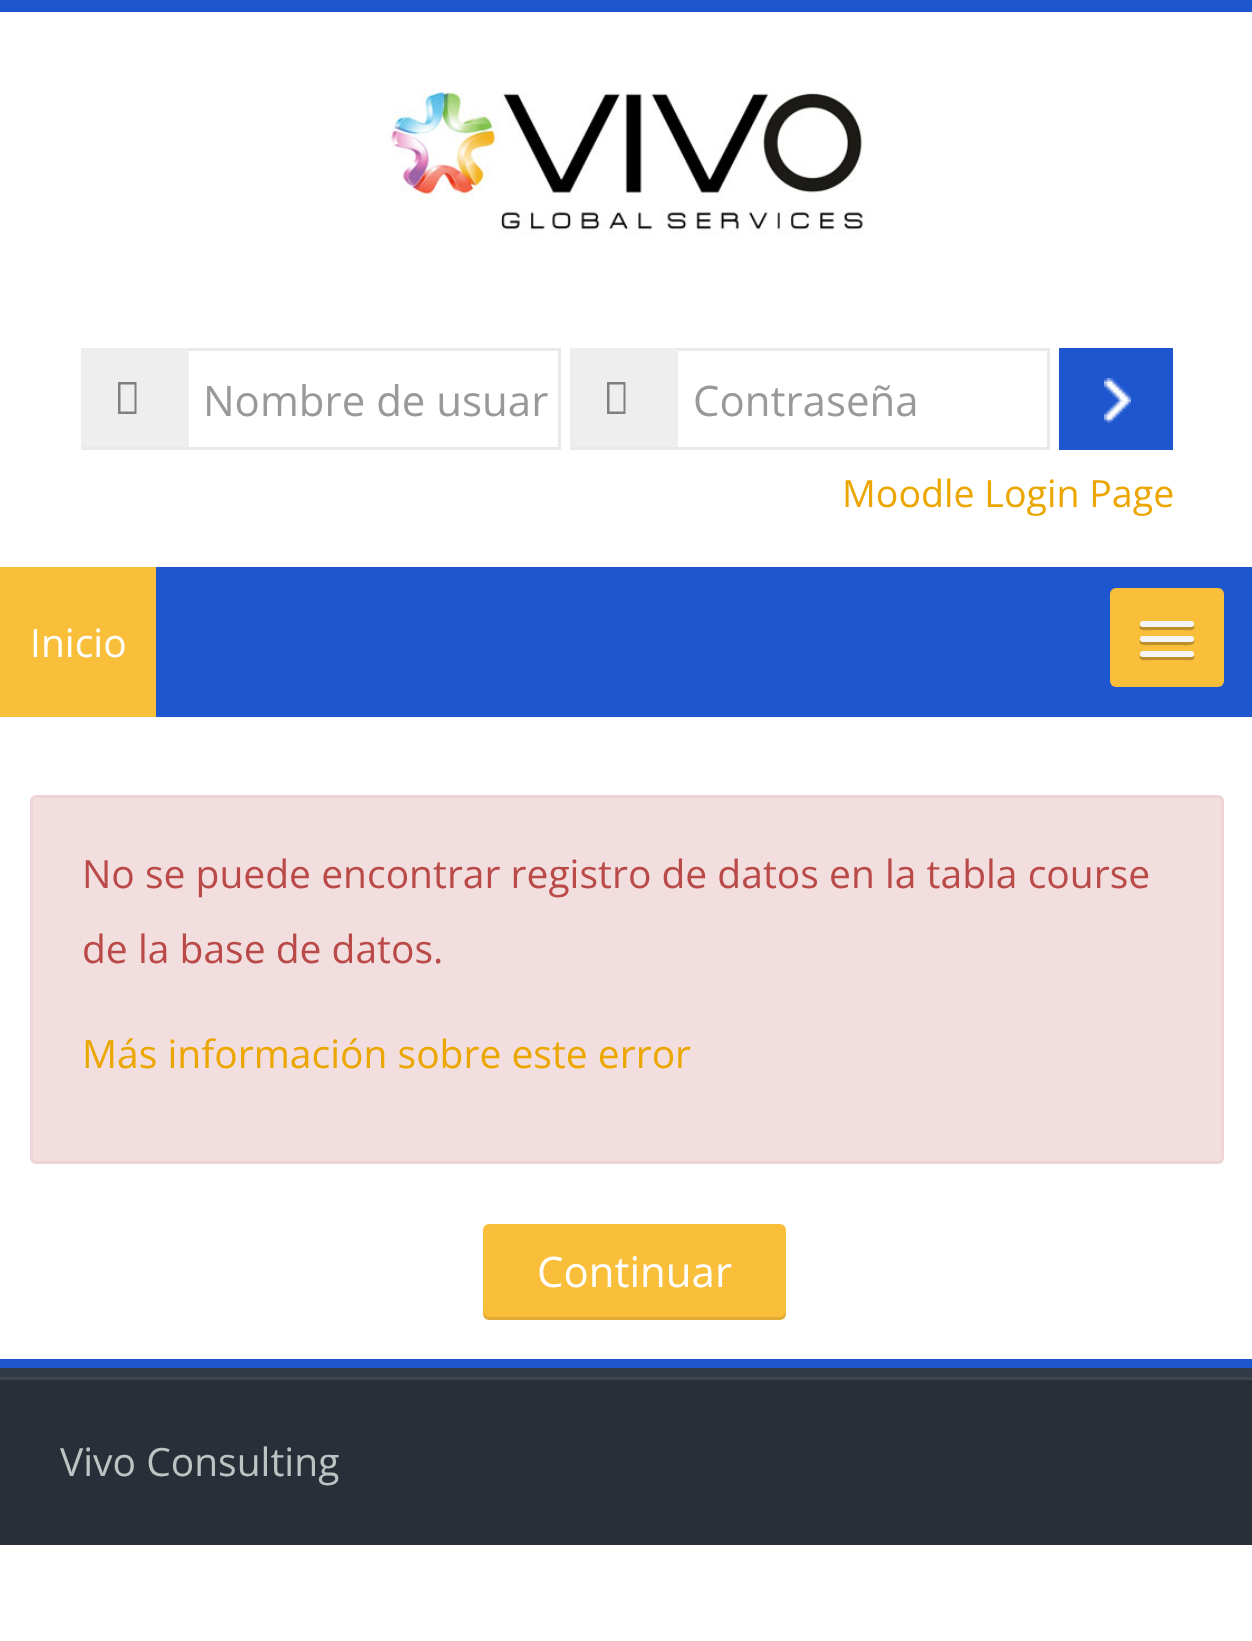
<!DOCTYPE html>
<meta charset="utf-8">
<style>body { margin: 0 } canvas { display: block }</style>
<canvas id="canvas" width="1252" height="1641"></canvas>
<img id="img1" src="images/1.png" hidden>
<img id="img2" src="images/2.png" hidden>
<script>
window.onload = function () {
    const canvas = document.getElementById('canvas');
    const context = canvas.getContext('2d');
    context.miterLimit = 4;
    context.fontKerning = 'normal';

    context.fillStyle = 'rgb(255, 255, 255)';
    context.fillRect(0, 0, 1252, 1641);
    context.fillStyle = 'rgb(30, 86, 207)';
    context.fillRect(0, 0, 1252, 12);
    context.drawImage(document.getElementById('img1'), 386, 92, 479, 144);
    context.strokeStyle = 'rgb(233, 233, 233)';
    context.lineWidth = 3;
    context.strokeRect(82.5, 349.5, 477, 99);
    context.fillStyle = 'rgb(238, 238, 238)';
    context.fillRect(81, 348, 108, 99);
    context.fillStyle = 'rgb(128, 128, 128)';
    context.beginPath();
    context.moveTo(118, 414);
    context.lineTo(118, 382);
    context.lineTo(136.5, 382);
    context.lineTo(136.5, 414);
    context.closePath();
    context.moveTo(120.5, 411.5);
    context.lineTo(134.5, 411.5);
    context.lineTo(134.5, 384.5);
    context.lineTo(120.5, 384.5);
    context.closePath();
    context.fill();
    context.strokeRect(571.5, 349.5, 477, 99);
    context.fillStyle = 'rgb(238, 238, 238)';
    context.fillRect(570, 348, 108, 99);
    context.fillStyle = 'rgb(128, 128, 128)';
    context.beginPath();
    context.moveTo(607, 414);
    context.lineTo(607, 382);
    context.lineTo(625.5, 382);
    context.lineTo(625.5, 414);
    context.closePath();
    context.moveTo(609.5, 411.5);
    context.lineTo(623.5, 411.5);
    context.lineTo(623.5, 384.5);
    context.lineTo(609.5, 384.5);
    context.closePath();
    context.fill();
    context.fillStyle = 'rgb(30, 86, 207)';
    context.fillRect(1059, 348, 114, 102);
    context.drawImage(document.getElementById('img2'), 1104, 378, 27, 45);
    context.fillRect(156, 567, 1096, 150);
    context.fillStyle = 'rgb(249, 191, 59)';
    context.fillRect(0, 567, 156, 150);
    context.beginPath();
    context.roundRect(1110, 588, 114, 99, 6);
    context.fill();
    context.fillStyle = 'rgb(187, 143, 44)';
    context.beginPath();
    context.moveTo(1140, 626);
    context.bezierCurveTo(1137, 632, 1151, 630, 1151, 630);
    context.lineTo(1183, 630);
    context.bezierCurveTo(1183, 630, 1197, 632, 1194, 626);
    context.bezierCurveTo(1193, 626, 1192, 627, 1191, 627);
    context.lineTo(1143, 627);
    context.bezierCurveTo(1142, 627, 1141, 626, 1140, 626);
    context.closePath();
    context.fill();
    context.fillStyle = 'rgb(245, 245, 245)';
    context.beginPath();
    context.roundRect(1140, 621, 54, 6, 3);
    context.fill();
    context.fillStyle = 'rgb(187, 143, 44)';
    context.beginPath();
    context.moveTo(1140, 640);
    context.bezierCurveTo(1137, 647, 1151, 645, 1151, 645);
    context.lineTo(1183, 645);
    context.bezierCurveTo(1183, 645, 1197, 647, 1194, 640);
    context.bezierCurveTo(1193, 641, 1192, 642, 1191, 642);
    context.lineTo(1143, 642);
    context.bezierCurveTo(1142, 642, 1141, 641, 1140, 640);
    context.closePath();
    context.fill();
    context.fillStyle = 'rgb(245, 245, 245)';
    context.beginPath();
    context.roundRect(1140, 636, 54, 6, 3);
    context.fill();
    context.fillStyle = 'rgb(187, 143, 44)';
    context.beginPath();
    context.moveTo(1140, 656);
    context.bezierCurveTo(1137, 662, 1151, 660, 1151, 660);
    context.lineTo(1183, 660);
    context.bezierCurveTo(1183, 660, 1197, 662, 1194, 656);
    context.bezierCurveTo(1193, 656, 1192, 657, 1191, 657);
    context.lineTo(1143, 657);
    context.bezierCurveTo(1142, 657, 1141, 656, 1140, 656);
    context.closePath();
    context.fill();
    context.fillStyle = 'rgb(245, 245, 245)';
    context.beginPath();
    context.roundRect(1140, 651, 54, 6, 3);
    context.fill();
    context.fillStyle = 'rgb(242, 222, 222)';
    context.beginPath();
    context.roundRect(31.5, 796.5, 1191, 366, 4.5);
    context.fill();
    context.strokeStyle = 'rgb(238, 211, 215)';
    context.stroke();
    context.fillStyle = 'rgb(249, 191, 59)';
    context.beginPath();
    context.roundRect(483, 1224, 303, 96, 6);
    context.fill();
    context.fillStyle = 'rgba(0, 0, 0, 0.1)';
    context.beginPath();
    context.moveTo(483, 1311);
    context.lineTo(483, 1314);
    context.bezierCurveTo(483, 1317, 486, 1320, 489, 1320);
    context.lineTo(780, 1320);
    context.bezierCurveTo(783, 1320, 786, 1317, 786, 1314);
    context.lineTo(786, 1311);
    context.bezierCurveTo(786, 1314, 783, 1317, 780, 1317);
    context.lineTo(489, 1317);
    context.bezierCurveTo(486, 1317, 483, 1314, 483, 1311);
    context.closePath();
    context.fill();
    context.fillStyle = 'rgb(50, 58, 69)';
    context.fillRect(0, 1368, 1252, 9);
    context.fillStyle = 'rgb(30, 86, 207)';
    context.fillRect(0, 1359, 1252, 9);
    context.fillStyle = 'rgb(41, 47, 56)';
    context.fillRect(0, 1380, 1252, 165);
    context.fillStyle = 'rgb(65, 70, 78)';
    context.fillRect(0, 1377, 1252, 3);
    context.font = '42px Open Sans';
    context.fillStyle = 'rgb(153, 153, 153)';
    context.fillText('Nombre de usuar', 203, 416);
    context.fillText('Contraseña', 693, 416);
    context.font = '37.6px Open Sans';
    context.fillStyle = 'rgb(235, 166, 0)';
    context.fillText('Moodle Login Page', 842, 507);
    context.font = '39px Open Sans';
    context.fillStyle = 'rgb(255, 255, 255)';
    context.fillText('Inicio', 30, 657);
    context.fillStyle = 'rgb(185, 74, 72)';
    context.fillText('No se puede encontrar registro de datos en la tabla course', 82, 888);
    context.fillText('de la base de datos.', 82, 963);
    context.fillStyle = 'rgb(235, 166, 0)';
    context.fillText('Más información sobre este error', 82, 1068);
    context.font = '42px Open Sans';
    context.fillStyle = 'rgb(255, 255, 255)';
    context.fillText('Continuar', 537, 1287);
    context.font = '39px Open Sans';
    context.fillStyle = 'rgb(189, 195, 194)';
    context.fillText('Vivo Consulting', 60, 1476);
};
</script>
